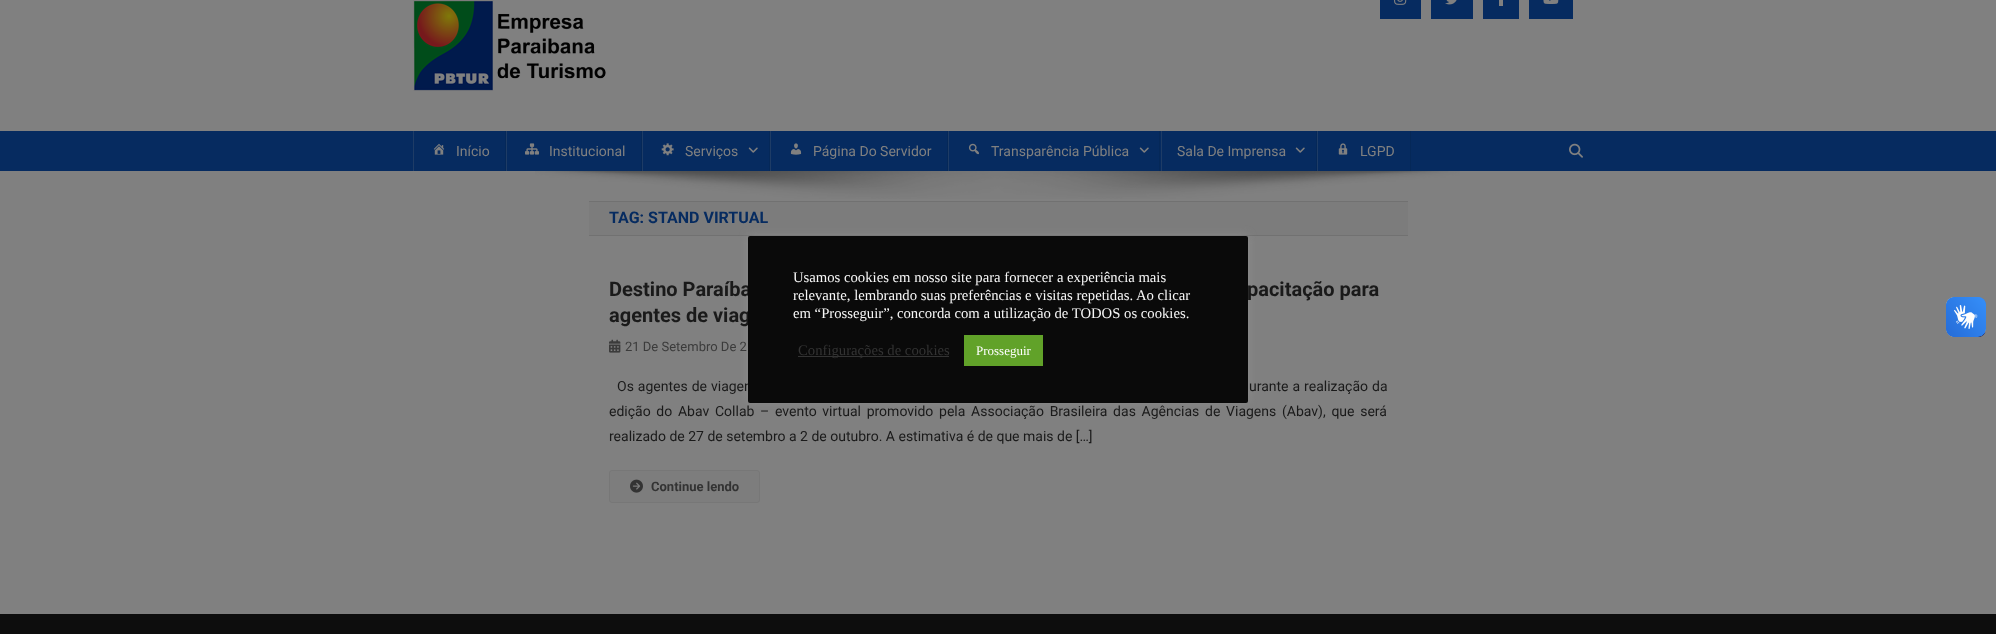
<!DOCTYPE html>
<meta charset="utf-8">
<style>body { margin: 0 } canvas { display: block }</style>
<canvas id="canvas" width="1996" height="634"></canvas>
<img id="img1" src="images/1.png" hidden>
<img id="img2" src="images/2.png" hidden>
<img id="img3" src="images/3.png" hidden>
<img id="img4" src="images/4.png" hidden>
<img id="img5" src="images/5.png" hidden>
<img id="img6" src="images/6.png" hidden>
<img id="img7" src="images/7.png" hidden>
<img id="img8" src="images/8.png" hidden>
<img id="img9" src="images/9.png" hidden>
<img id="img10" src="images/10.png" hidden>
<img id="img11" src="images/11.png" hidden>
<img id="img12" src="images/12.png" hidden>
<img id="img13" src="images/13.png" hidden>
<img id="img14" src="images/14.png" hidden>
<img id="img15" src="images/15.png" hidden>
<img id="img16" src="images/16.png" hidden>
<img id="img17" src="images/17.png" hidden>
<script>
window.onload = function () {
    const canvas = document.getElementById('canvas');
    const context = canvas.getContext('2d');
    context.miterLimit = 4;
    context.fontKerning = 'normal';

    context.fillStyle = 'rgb(128, 128, 128)';
    context.fillRect(0, 0, 1996, 634);
    context.drawImage(document.getElementById('img1'), 413, 0, 193, 91);
    context.fillStyle = 'rgb(6, 43, 96)';
    context.fillRect(1380, 0, 41, 19);
    context.drawImage(document.getElementById('img2'), 1394, 0, 13, 5);
    context.fillRect(1431, 0, 42, 19);
    context.drawImage(document.getElementById('img3'), 1445, 0, 12, 5);
    context.fillRect(1483, 0, 36, 19);
    context.fillStyle = 'rgb(128, 128, 128)';
    context.fillRect(1499, 0, 4, 6);
    context.fillStyle = 'rgb(6, 43, 96)';
    context.fillRect(1529, 0, 44, 19);
    context.drawImage(document.getElementById('img4'), 1543, 0, 16, 4);
    context.fillRect(0, 131, 1996, 40);
    context.fillStyle = 'rgb(5, 40, 88)';
    context.fillRect(505, 131, 1, 40);
    context.fillStyle = 'rgb(30, 60, 102)';
    context.fillRect(413, 131, 1, 40);
    context.drawImage(document.getElementById('img5'), 433, 143, 12, 12);
    context.fillStyle = 'rgb(5, 40, 88)';
    context.fillRect(641, 131, 1, 40);
    context.fillStyle = 'rgb(30, 60, 102)';
    context.fillRect(506, 131, 1, 40);
    context.drawImage(document.getElementById('img6'), 525, 143, 14, 12);
    context.fillStyle = 'rgb(5, 40, 88)';
    context.fillRect(769, 131, 1, 40);
    context.fillStyle = 'rgb(30, 60, 102)';
    context.fillRect(642, 131, 1, 40);
    context.drawImage(document.getElementById('img7'), 661, 143, 13, 13);
    context.drawImage(document.getElementById('img8'), 748, 147, 10, 6);
    context.fillStyle = 'rgb(5, 40, 88)';
    context.fillRect(947, 131, 1, 40);
    context.fillStyle = 'rgb(30, 60, 102)';
    context.fillRect(770, 131, 1, 40);
    context.drawImage(document.getElementById('img9'), 790, 143, 12, 12);
    context.fillStyle = 'rgb(5, 40, 88)';
    context.fillRect(1159, 131, 1, 40);
    context.fillStyle = 'rgb(30, 60, 102)';
    context.fillRect(948, 131, 1, 40);
    context.drawImage(document.getElementById('img10'), 968, 143, 11, 12);
    context.drawImage(document.getElementById('img8'), 1139, 147, 10, 6);
    context.fillStyle = 'rgb(5, 40, 88)';
    context.fillRect(1316, 131, 1, 40);
    context.fillStyle = 'rgb(30, 60, 102)';
    context.fillRect(1161, 131, 1, 40);
    context.drawImage(document.getElementById('img8'), 1295, 147, 10, 6);
    context.fillStyle = 'rgb(5, 40, 88)';
    context.fillRect(1410, 131, 1, 40);
    context.fillStyle = 'rgb(30, 60, 102)';
    context.fillRect(1317, 131, 1, 40);
    context.drawImage(document.getElementById('img11'), 1338, 143, 10, 12);
    context.drawImage(document.getElementById('img12'), 1569, 143, 14, 15);
    context.drawImage(document.getElementById('img13'), 535, 171, 925, 28);
    context.fillStyle = 'rgb(124, 124, 124)';
    context.fillRect(589, 202, 819, 33);
    context.fillStyle = 'rgb(113, 113, 113)';
    context.fillRect(589, 201, 819, 1);
    context.fillRect(589, 235, 819, 1);
    context.drawImage(document.getElementById('img14'), 609, 339, 12, 14);
    context.fillStyle = 'rgb(125, 125, 125)';
    context.beginPath();
    context.roundRect(609.5, 470.5, 150, 32, 2.5);
    context.fill();
    context.strokeStyle = 'rgb(119, 119, 119)';
    context.stroke();
    context.drawImage(document.getElementById('img15'), 630, 479, 13, 14);
    context.fillStyle = 'rgb(13, 13, 13)';
    context.fillRect(0, 614, 1996, 20);
    context.fillStyle = 'rgba(172, 171, 171, 0.3)';
    context.filter = 'blur(5px)';
    context.beginPath();
    context.roundRect(748, 235, 500, 167, 2);
    context.fill();
    context.filter = 'none';
    context.drawImage(document.getElementById('img16'), 1946, 297, 40, 40);
    context.drawImage(document.getElementById('img17'), 1946, 297, 40, 40);
    context.font = '14px Roboto';
    context.fillStyle = 'rgb(128, 128, 128)';
    context.fillText('Início', 456, 156);
    context.fillText('Institucional', 549, 156);
    context.fillText('Serviços', 685, 156);
    context.fillText('Página Do Servidor', 813, 156);
    context.fillText('Transparência Pública', 991, 156);
    context.fillText('Sala De Imprensa', 1177, 156);
    context.fillText('LGPD', 1360, 156);
    context.font = 'bold 16px Roboto';
    context.fillStyle = 'rgb(6, 43, 96)';
    context.fillText('TAG: STAND VIRTUAL', 609, 223);
    context.font = 'bold 20px Roboto';
    context.fillStyle = 'rgb(26, 26, 26)';
    context.fillText('Destino Paraíba', 609, 296);
    context.fillText('pacitação para', 1247, 296);
    context.fillText('agentes de viag', 609, 322);
    context.font = '13px Roboto';
    context.fillStyle = 'rgb(59, 59, 59)';
    context.fillText('21 De Setembro De 2', 625, 351);
    context.wordSpacing = '0.5px';
    context.font = '14px Roboto';
    context.fillStyle = 'rgb(26, 26, 26)';
    context.fillText('Os agentes de viagen', 617, 391);
    context.fillText('urante a realização da', 1249, 391);
    context.wordSpacing = '2.25px';
    context.fillText('edição do Abav Collab – evento virtual promovido pela Associação Brasileira das Agências de Viagens (Abav), que será', 609, 416);
    context.wordSpacing = '0px';
    context.fillText('realizado de 27 de setembro a 2 de outubro. A estimativa é de que mais de […]', 609, 441);
    context.font = 'bold 13px Roboto';
    context.fillStyle = 'rgb(51, 51, 51)';
    context.fillText('Continue lendo', 651, 491);
    context.fillStyle = 'rgb(10, 10, 10)';
    context.beginPath();
    context.roundRect(748, 236, 500, 167, 2);
    context.fill();
    context.font = '14.7px Liberation Serif';
    context.fillStyle = 'rgb(247, 247, 247)';
    context.fillText('Usamos cookies em nosso site para fornecer a experiência mais', 793, 282);
    context.fillText('relevante, lembrando suas preferências e visitas repetidas. Ao clicar', 793, 300);
    context.fillText('em “Prosseguir”, concorda com a utilização de TODOS os cookies.', 793, 318);
    context.fillStyle = 'rgb(51, 51, 51)';
    context.fillRect(798, 356, 151, 1);
    context.fillText('Configurações de cookies', 798, 355);
    context.fillStyle = 'rgb(97, 162, 41)';
    context.fillRect(964, 335, 79, 31);
    context.font = '13px Liberation Serif';
    context.fillStyle = 'rgb(255, 255, 255)';
    context.fillText('Prosseguir', 976, 355);
};
</script>
